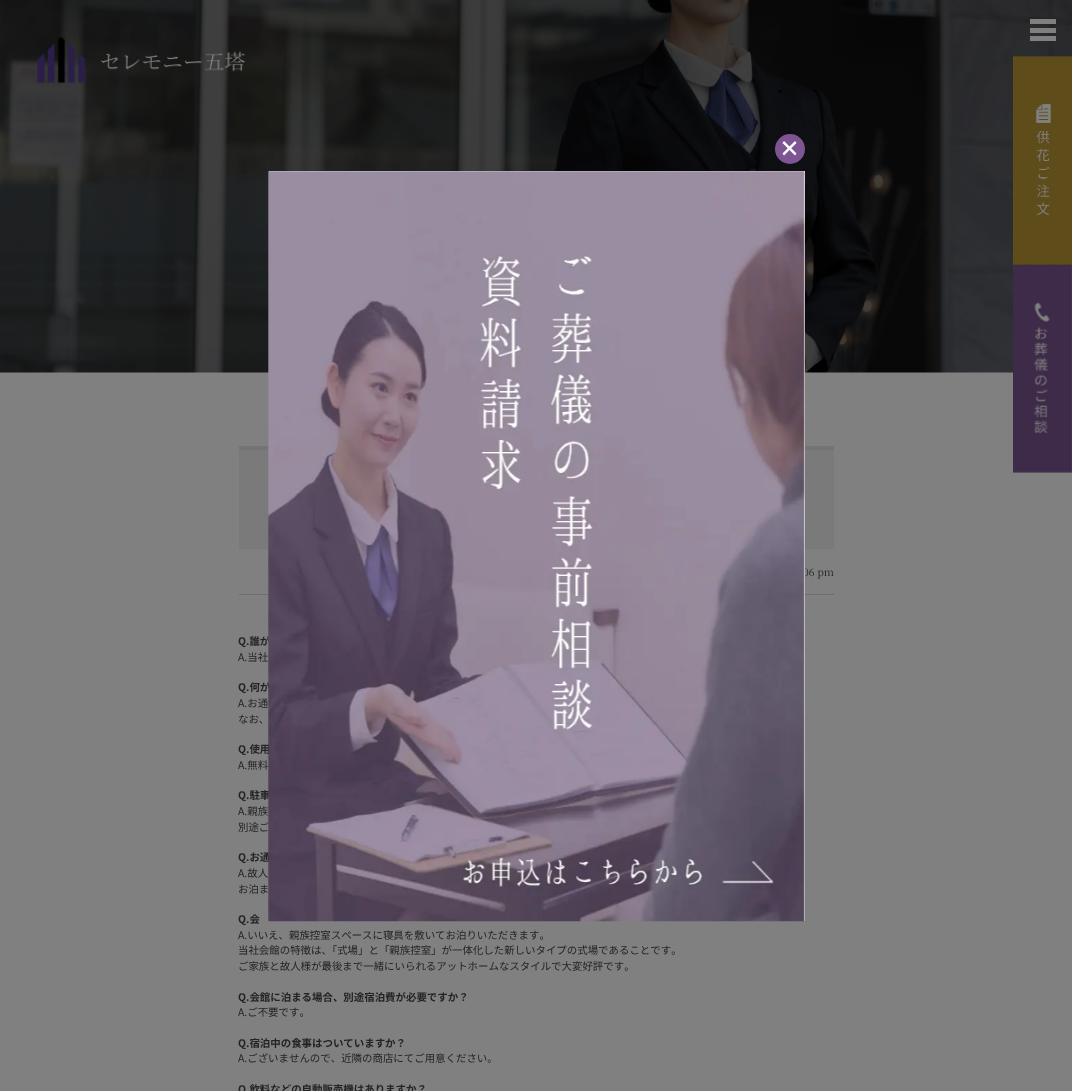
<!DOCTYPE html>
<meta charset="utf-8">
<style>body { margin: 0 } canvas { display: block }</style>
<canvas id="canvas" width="1072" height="1091"></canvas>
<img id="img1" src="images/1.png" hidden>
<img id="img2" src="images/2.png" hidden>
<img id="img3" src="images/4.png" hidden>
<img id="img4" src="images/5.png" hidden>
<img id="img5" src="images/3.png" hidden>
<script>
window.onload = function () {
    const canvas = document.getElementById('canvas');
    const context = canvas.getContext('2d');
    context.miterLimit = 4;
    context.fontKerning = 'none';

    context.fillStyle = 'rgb(128, 128, 128)';
    context.fillRect(0, 0, 1072, 1091);
    context.drawImage(document.getElementById('img1'), 0, 0, 1072, 373);
    context.drawImage(document.getElementById('img2'), 37, 37, 209, 46);
    context.fillRect(1030, 19, 26, 5);
    context.fillRect(1030, 28, 26, 5);
    context.fillRect(1030, 36, 26, 5);
    context.fillStyle = 'rgb(125, 85, 146)';
    context.beginPath();
    context.arc(790, 149, 15, 0, 2 * Math.PI);
    context.fill();
    context.fillStyle = 'rgb(255, 255, 255)';
    context.beginPath();
    context.moveTo(784, 141);
    context.lineTo(796.5, 153.5);
    context.lineTo(795, 155.5);
    context.lineTo(782.5, 143);
    context.closePath();
    context.fill();
    context.beginPath();
    context.moveTo(782.5, 153.5);
    context.lineTo(795, 141);
    context.lineTo(796.5, 143);
    context.lineTo(784, 155.5);
    context.closePath();
    context.fill();
    context.drawImage(document.getElementById('img3'), 1013, 56, 59, 209);
    context.drawImage(document.getElementById('img4'), 1013, 264, 59, 209);
    context.fillStyle = 'rgb(122, 122, 122)';
    context.fillRect(239, 450, 595, 99);
    context.fillStyle = 'rgb(116, 116, 116)';
    context.fillRect(239, 446, 595, 4);
    context.fillStyle = 'rgb(109, 109, 109)';
    context.fillRect(239, 594, 595, 1);
    context.font = '10.45px Noto Serif JP';
    context.fillStyle = 'rgb(35, 35, 35)';
    context.fillText('06 pm', 803, 576);
    context.font = 'bold 10.45px Noto Sans JP';
    context.fillText('Q.誰が', 238, 645);
    context.font = '10.45px Noto Sans JP';
    context.fillText('A.当社', 238, 661);
    context.font = 'bold 10.45px Noto Sans JP';
    context.fillText('Q.何が', 238, 691);
    context.font = '10.45px Noto Sans JP';
    context.fillText('A.お通', 238, 707);
    context.fillText('なお、', 238, 723);
    context.font = 'bold 10.45px Noto Sans JP';
    context.fillText('Q.使用', 238, 753);
    context.font = '10.45px Noto Sans JP';
    context.fillText('A.無料', 238, 769);
    context.font = 'bold 10.45px Noto Sans JP';
    context.fillText('Q.駐車', 238, 799);
    context.font = '10.45px Noto Sans JP';
    context.fillText('A.親族', 238, 815);
    context.fillText('別途ご', 238, 831);
    context.font = 'bold 10.45px Noto Sans JP';
    context.fillText('Q.お通', 238, 861);
    context.fillStyle = 'rgb(255, 255, 255)';
    context.fillRect(269, 171, 536, 750);
    context.font = '10.45px Noto Sans JP';
    context.fillStyle = 'rgb(35, 35, 35)';
    context.fillText('A.故人', 238, 877);
    context.fillText('お泊ま', 238, 893);
    context.drawImage(document.getElementById('img5'), 268, 171, 537, 751);
    context.font = 'bold 10.45px Noto Sans JP';
    context.fillText('Q.会', 238, 923);
    context.font = '10.45px Noto Sans JP';
    context.fillText('A.いいえ、親族控室スペースに寝具を敷いてお泊りいただきます。', 238, 939);
    context.fillText('当社会館の特徴は、「式場」と「親族控室」が一体化した新しいタイプの式場であることです。', 238, 954);
    context.fillText('ご家族と故人様が最後まで一緒にいられるアットホームなスタイルで大変好評です。', 238, 970);
    context.font = 'bold 10.45px Noto Sans JP';
    context.fillText('Q.会館に泊まる場合、別途宿泊費が必要ですか？', 238, 1001);
    context.font = '10.45px Noto Sans JP';
    context.fillText('A.ご不要です。', 238, 1016);
    context.font = 'bold 10.45px Noto Sans JP';
    context.fillText('Q.宿泊中の食事はついていますか？', 238, 1047);
    context.font = '10.45px Noto Sans JP';
    context.fillText('A.ございませんので、近隣の商店にてご用意ください。', 238, 1062);
    context.font = 'bold 10.45px Noto Sans JP';
    context.fillText('Q.飲料などの自動販売機はありますか？', 238, 1093);
};
</script>
